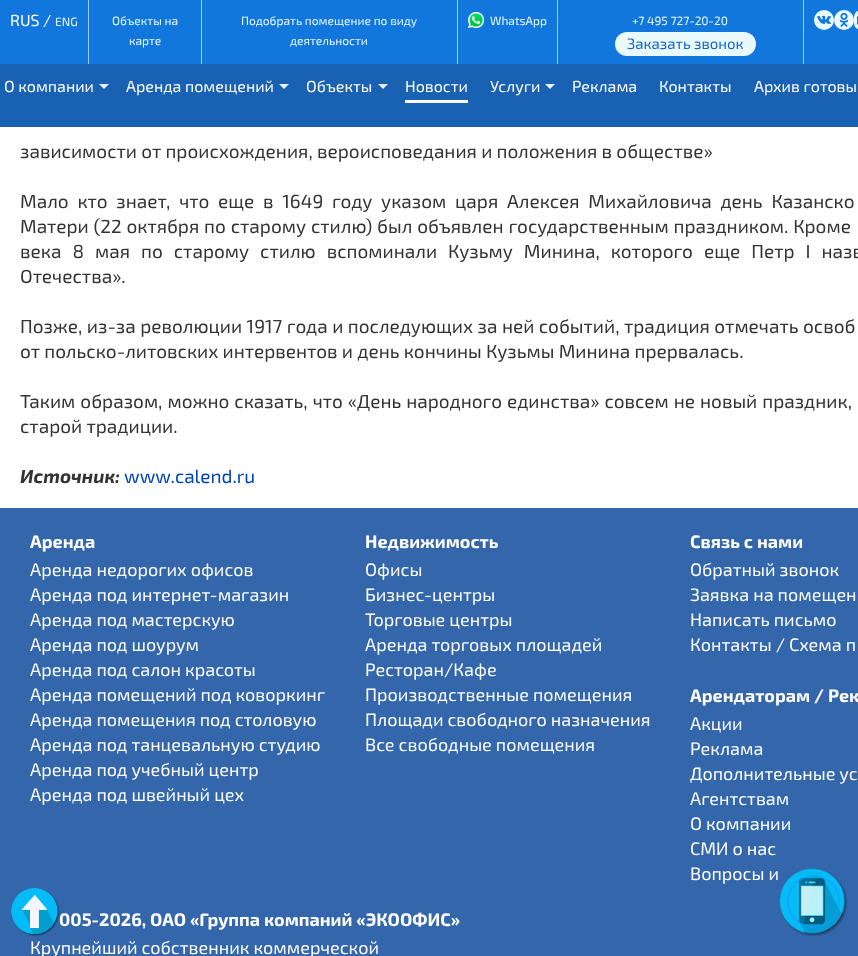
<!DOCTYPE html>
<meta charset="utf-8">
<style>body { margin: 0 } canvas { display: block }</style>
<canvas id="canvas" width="858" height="956"></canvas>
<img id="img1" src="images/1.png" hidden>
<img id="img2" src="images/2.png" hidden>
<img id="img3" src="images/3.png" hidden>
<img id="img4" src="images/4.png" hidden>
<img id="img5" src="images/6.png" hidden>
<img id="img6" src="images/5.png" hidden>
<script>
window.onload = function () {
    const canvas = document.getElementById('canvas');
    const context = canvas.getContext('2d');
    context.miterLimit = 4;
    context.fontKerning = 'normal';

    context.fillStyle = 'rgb(255, 255, 255)';
    context.fillRect(0, 0, 858, 956);
    context.fillStyle = 'rgb(17, 119, 221)';
    context.fillRect(0, 0, 858, 64);
    context.fillStyle = 'rgb(160, 201, 241)';
    context.fillRect(88, 0, 1, 64);
    context.fillRect(201, 0, 1, 64);
    context.fillRect(457, 0, 1, 64);
    context.fillRect(557, 0, 1, 64);
    context.drawImage(document.getElementById('img1'), 468, 12, 16, 16);
    context.fillRect(803, 0, 1, 64);
    context.fillStyle = 'rgb(233, 249, 252)';
    context.beginPath();
    context.roundRect(615, 32, 141, 24, 12);
    context.fill();
    context.beginPath();
    context.arc(824, 20, 10, 0, 2 * Math.PI);
    context.fill();
    context.drawImage(document.getElementById('img2'), 817, 15, 14, 9);
    context.beginPath();
    context.arc(844, 20, 10, 0, 2 * Math.PI);
    context.fill();
    context.drawImage(document.getElementById('img3'), 839, 12, 10, 15);
    context.beginPath();
    context.roundRect(854, 10, 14, 20, 10);
    context.fill();
    context.drawImage(document.getElementById('img4'), 857, 16, 1, 9);
    context.fillStyle = 'rgba(0, 80, 170, 0.9)';
    context.fillRect(0, 64, 858, 63);
    context.fillStyle = 'rgb(232, 239, 247)';
    context.beginPath();
    context.moveTo(99, 84);
    context.lineTo(109, 84);
    context.lineTo(104, 89);
    context.closePath();
    context.fill();
    context.beginPath();
    context.moveTo(279, 84);
    context.lineTo(289, 84);
    context.lineTo(284, 89);
    context.closePath();
    context.fill();
    context.beginPath();
    context.moveTo(378, 84);
    context.lineTo(388, 84);
    context.lineTo(383, 89);
    context.closePath();
    context.fill();
    context.fillStyle = 'rgb(255, 255, 255)';
    context.fillRect(405, 100, 63, 3);
    context.fillStyle = 'rgb(232, 239, 247)';
    context.beginPath();
    context.moveTo(545, 84);
    context.lineTo(555, 84);
    context.lineTo(550, 89);
    context.closePath();
    context.fill();
    context.fillStyle = 'rgb(51, 102, 170)';
    context.fillRect(0, 508, 858, 448);
    context.drawImage(document.getElementById('img5'), 779, 868, 69, 68);
    context.beginPath();
    context.arc(813.5, 901.5, 25.5, 0, 2 * Math.PI);
    context.strokeStyle = 'rgba(17, 153, 255, 0.54)';
    context.lineWidth = 2;
    context.stroke();
    context.font = '16px "Exo 2"';
    context.fillStyle = 'rgb(255, 255, 255)';
    context.fillText('RUS /', 10, 26);
    context.font = '12px "Exo 2"';
    context.fillStyle = 'rgb(233, 249, 252)';
    context.fillText('ENG', 55, 26);
    context.fillText('Объекты на', 112, 25);
    context.fillText('карте', 129, 45);
    context.fillText('Подобрать помещение по виду', 241, 25);
    context.fillText('деятельности', 290, 45);
    context.fillText('WhatsApp', 490, 25);
    context.fillText('+7 495 727-20-20', 632, 25);
    context.font = '15px "Exo 2"';
    context.fillStyle = 'rgb(17, 102, 204)';
    context.fillText('Заказать звонок', 627, 49);
    context.font = '16px "Exo 2"';
    context.fillStyle = 'rgb(255, 255, 255)';
    context.fillText('О компании', 4, 92);
    context.fillText('Аренда помещений', 126, 92);
    context.fillText('Объекты', 306, 92);
    context.fillText('Новости', 405, 92);
    context.fillText('Услуги', 490, 92);
    context.fillText('Реклама', 572, 92);
    context.fillText('Контакты', 659, 92);
    context.fillText('Архив готовы', 754, 92);
    context.font = '19px "Exo 2"';
    context.fillStyle = 'rgb(51, 51, 51)';
    context.fillText('зависимости от происхождения, вероисповедания и положения в обществе»', 20, 158);
    context.wordSpacing = '4.5px';
    context.fillText('Мало кто знает, что еще в 1649 году указом царя Алексея Михайловича день Казанско', 20, 208);
    context.wordSpacing = '0.6px';
    context.fillText('Матери (22 октября по старому стилю) был объявлен государственным праздником. Кроме', 20, 233);
    context.wordSpacing = '6.75px';
    context.fillText('века 8 мая по старому стилю вспоминали Кузьму Минина, которого еще Петр I назв', 20, 258);
    context.wordSpacing = '0px';
    context.fillText('Отечества».', 20, 283);
    context.wordSpacing = '0.25px';
    context.fillText('Позже, из-за революции 1917 года и последующих за ней событий, традиция отмечать освоб', 20, 333);
    context.wordSpacing = '0px';
    context.fillText('от польско-литовских интервентов и день кончины Кузьмы Минина прервалась.', 20, 358);
    context.wordSpacing = '0.75px';
    context.fillText('Таким образом, можно сказать, что «День народного единства» совсем не новый праздник,', 20, 408);
    context.wordSpacing = '0px';
    context.fillText('старой традиции.', 20, 433);
    context.font = 'italic bold 19px "Exo 2"';
    context.fillText('Источник:', 20, 483);
    context.font = '19px "Exo 2"';
    context.fillStyle = 'rgb(0, 68, 187)';
    context.fillText('www.calend.ru', 124, 483);
    context.font = 'bold 18px "Exo 2"';
    context.fillStyle = 'rgb(255, 255, 255)';
    context.fillText('Аренда', 30, 548);
    context.font = '18px "Exo 2"';
    context.fillText('Аренда недорогих офисов', 30, 576);
    context.fillText('Аренда под интернет-магазин', 30, 601);
    context.fillText('Аренда под мастерскую', 30, 626);
    context.fillText('Аренда под шоурум', 30, 651);
    context.fillText('Аренда под салон красоты', 30, 676);
    context.fillText('Аренда помещений под коворкинг', 30, 701);
    context.fillText('Аренда помещения под столовую', 30, 726);
    context.fillText('Аренда под танцевальную студию', 30, 751);
    context.fillText('Аренда под учебный центр', 30, 776);
    context.fillText('Аренда под швейный цех', 30, 801);
    context.font = 'bold 18px "Exo 2"';
    context.fillText('Недвижимость', 365, 548);
    context.font = '18px "Exo 2"';
    context.fillText('Офисы', 365, 576);
    context.fillText('Бизнес-центры', 365, 601);
    context.fillText('Торговые центры', 365, 626);
    context.fillText('Аренда торговых площадей', 365, 651);
    context.fillText('Ресторан/Кафе', 365, 676);
    context.fillText('Производственные помещения', 365, 701);
    context.fillText('Площади свободного назначения', 365, 726);
    context.fillText('Все свободные помещения', 365, 751);
    context.font = 'bold 18px "Exo 2"';
    context.fillText('Связь с нами', 690, 548);
    context.font = '18px "Exo 2"';
    context.fillText('Обратный звонок', 690, 576);
    context.fillText('Заявка на помещен', 690, 601);
    context.fillText('Написать письмо', 690, 626);
    context.fillText('Контакты / Схема п', 690, 651);
    context.font = 'bold 18px "Exo 2"';
    context.fillText('Арендаторам / Рек', 690, 702);
    context.font = '18px "Exo 2"';
    context.fillText('Акции', 690, 730);
    context.fillText('Реклама', 690, 755);
    context.fillText('Дополнительные ус', 690, 780);
    context.fillText('Агентствам', 690, 805);
    context.fillText('О компании', 690, 830);
    context.fillText('СМИ о нас', 690, 855);
    context.fillText('Вопросы и', 690, 880);
    context.font = 'bold 18px "Exo 2"';
    context.fillText('005-2026, ОАО «Группа компаний «ЭКООФИС»', 59, 926);
    context.font = '18px "Exo 2"';
    context.fillText('Крупнейший собственник коммерческой', 30, 954);
    context.drawImage(document.getElementById('img6'), 11, 888, 49, 48);
};
</script>
